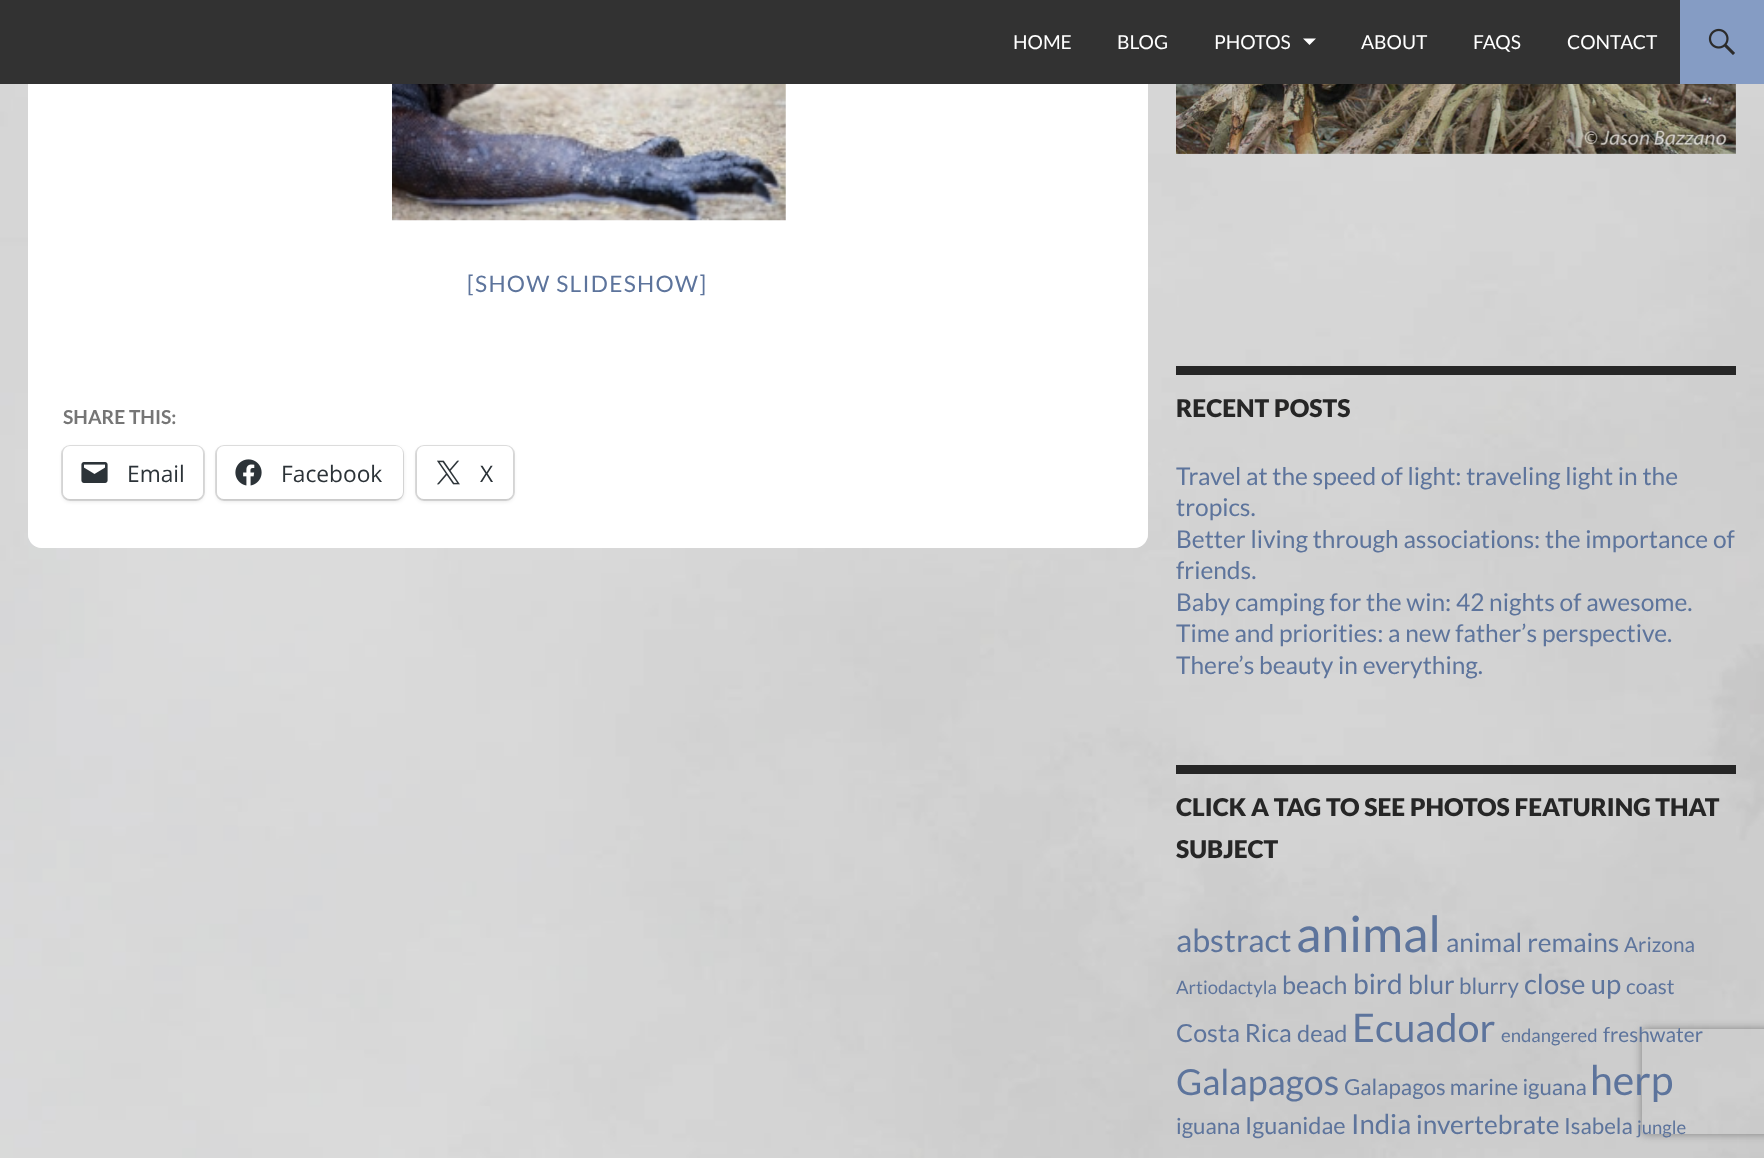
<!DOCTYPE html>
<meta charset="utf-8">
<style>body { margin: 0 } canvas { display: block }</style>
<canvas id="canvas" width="1764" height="1158"></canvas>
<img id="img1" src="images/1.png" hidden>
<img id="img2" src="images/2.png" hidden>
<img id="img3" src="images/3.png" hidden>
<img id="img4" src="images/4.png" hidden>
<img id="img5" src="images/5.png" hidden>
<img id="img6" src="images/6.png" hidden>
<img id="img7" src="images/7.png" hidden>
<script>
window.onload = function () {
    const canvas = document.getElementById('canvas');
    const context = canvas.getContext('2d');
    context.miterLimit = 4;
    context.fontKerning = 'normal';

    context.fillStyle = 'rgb(255, 255, 255)';
    context.fillRect(0, 0, 1764, 1158);
    context.drawImage(document.getElementById('img1'), 0, 84, 1764, 1074);
    context.beginPath();
    context.roundRect(28, -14, 1120, 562, 14);
    context.fill();
    context.fillStyle = 'rgba(255, 255, 255, 0.6)';
    context.beginPath();
    context.roundRect(28, -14, 1120, 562, 14);
    context.fill();
    context.fillStyle = 'rgb(50, 50, 50)';
    context.fillRect(0, 0, 1680, 84);
    context.fillStyle = 'rgb(255, 255, 255)';
    context.beginPath();
    context.moveTo(1303, 38.5);
    context.lineTo(1316, 38.5);
    context.lineTo(1309.5, 45);
    context.closePath();
    context.fill();
    context.fillStyle = 'rgb(133, 156, 196)';
    context.fillRect(1680, 0, 84, 84);
    context.drawImage(document.getElementById('img2'), 1708, 28, 27, 27);
    context.drawImage(document.getElementById('img3'), 392, 84, 394, 137);
    context.beginPath();
    context.roundRect(62, 446, 142, 54, 8);
    context.strokeStyle = 'rgb(224, 224, 224)';
    context.lineWidth = 2;
    context.stroke();
    context.fillStyle = 'rgba(0, 0, 0, 0.12)';
    context.filter = 'blur(2px)';
    context.beginPath();
    context.roundRect(63, 448, 140, 53, 7);
    context.fill();
    context.filter = 'none';
    context.fillStyle = 'rgb(255, 255, 255)';
    context.beginPath();
    context.roundRect(63, 446, 140, 53, 7);
    context.fill();
    context.drawImage(document.getElementById('img4'), 81, 462, 27, 21);
    context.beginPath();
    context.roundRect(216, 446, 187, 54, 8);
    context.stroke();
    context.fillStyle = 'rgba(0, 0, 0, 0.12)';
    context.filter = 'blur(2px)';
    context.beginPath();
    context.roundRect(217, 448, 186, 53, 7);
    context.fill();
    context.filter = 'none';
    context.fillStyle = 'rgb(255, 255, 255)';
    context.beginPath();
    context.roundRect(217, 446, 186, 53, 7);
    context.fill();
    context.drawImage(document.getElementById('img5'), 235, 459, 27, 27);
    context.beginPath();
    context.roundRect(416, 446, 98, 54, 8);
    context.stroke();
    context.fillStyle = 'rgba(0, 0, 0, 0.12)';
    context.filter = 'blur(2px)';
    context.beginPath();
    context.roundRect(417, 448, 96, 53, 7);
    context.fill();
    context.filter = 'none';
    context.fillStyle = 'rgb(255, 255, 255)';
    context.beginPath();
    context.roundRect(417, 446, 96, 53, 7);
    context.fill();
    context.drawImage(document.getElementById('img6'), 437, 460, 23, 25);
    context.drawImage(document.getElementById('img7'), 1176, 84, 560, 70);
    context.fillStyle = 'rgb(38, 38, 38)';
    context.fillRect(1176, 366, 560, 9);
    context.fillRect(1176, 765, 560, 9);
    context.save();
    context.beginPath();
    context.moveTo(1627, 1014);
    context.lineTo(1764, 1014);
    context.lineTo(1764, 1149);
    context.lineTo(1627, 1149);
    context.closePath();
    context.moveTo(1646, 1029);
    context.lineTo(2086, 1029);
    context.bezierCurveTo(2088, 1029, 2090, 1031, 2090, 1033);
    context.lineTo(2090, 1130);
    context.bezierCurveTo(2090, 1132, 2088, 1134, 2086, 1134);
    context.lineTo(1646, 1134);
    context.bezierCurveTo(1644, 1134, 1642, 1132, 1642, 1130);
    context.lineTo(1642, 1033);
    context.bezierCurveTo(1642, 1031, 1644, 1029, 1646, 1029);
    context.closePath();
    context.clip('evenodd');
    context.fillStyle = 'rgb(128, 128, 128)';
    context.filter = 'blur(4.5px)';
    context.beginPath();
    context.roundRect(1642, 1029, 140, 105, 4);
    context.fill();
    context.filter = 'none';
    context.restore();
    context.font = '19.25px Lato';
    context.fillStyle = 'rgb(255, 255, 255)';
    context.fillText('HOME', 1013, 49);
    context.fillText('BLOG', 1117, 49);
    context.fillText('PHOTOS', 1214, 49);
    context.fillText('ABOUT', 1361, 49);
    context.fillText('FAQS', 1473, 49);
    context.fillText('CONTACT', 1567, 49);
    context.letterSpacing = '1.25px';
    context.font = '22.75px Lato';
    context.fillStyle = 'rgb(93, 116, 156)';
    context.fillText('[SHOW SLIDESHOW]', 467, 292);
    context.letterSpacing = '0px';
    context.font = 'bold 19.25px Lato';
    context.fillStyle = 'rgb(118, 118, 118)';
    context.fillText('SHARE THIS:', 63, 424);
    context.font = '22.75px Open Sans';
    context.fillStyle = 'rgb(44, 51, 56)';
    context.fillText('Email', 127, 482);
    context.fillText('Facebook', 281, 482);
    context.fillText('X', 480, 482);
    context.font = '900 24.5px Lato';
    context.fillStyle = 'rgb(38, 38, 38)';
    context.fillText('RECENT POSTS', 1176, 417);
    context.font = '24.5px Lato';
    context.fillStyle = 'rgb(93, 116, 156)';
    context.fillText('Travel at the speed of light: traveling light in the', 1176, 485);
    context.fillText('tropics.', 1176, 516);
    context.fillText('Better living through associations: the importance of', 1176, 548);
    context.fillText('friends.', 1176, 579);
    context.fillText('Baby camping for the win: 42 nights of awesome.', 1176, 611);
    context.fillText('Time and priorities: a new father’s perspective.', 1176, 642);
    context.fillText('There’s beauty in everything.', 1176, 674);
    context.font = '900 24.5px Lato';
    context.fillStyle = 'rgb(38, 38, 38)';
    context.fillText('CLICK A TAG TO SEE PHOTOS FEATURING THAT', 1176, 816);
    context.fillText('SUBJECT', 1176, 858);
    context.font = '32px Lato';
    context.fillStyle = 'rgb(93, 116, 156)';
    context.fillText('abstract', 1176, 952);
    context.font = '50px Lato';
    context.fillText('animal', 1296, 952);
    context.font = '26.25px Lato';
    context.fillText('animal remains', 1446, 952);
    context.font = '20.75px Lato';
    context.fillText('Arizona', 1624, 952);
    context.font = '18.5px Lato';
    context.fillText('Artiodactyla', 1176, 994);
    context.font = '25px Lato';
    context.fillText('beach', 1282, 994);
    context.font = '28px Lato';
    context.fillText('bird', 1353, 994);
    context.font = '26.25px Lato';
    context.fillText('blur', 1408, 994);
    context.font = '22.25px Lato';
    context.fillText('blurry', 1459, 994);
    context.font = '27.5px Lato';
    context.fillText('close up', 1524, 994);
    context.font = '20.75px Lato';
    context.fillText('coast', 1626, 994);
    context.font = '25px Lato';
    context.fillText('Costa Rica', 1176, 1042);
    context.font = '23.5px Lato';
    context.fillText('dead', 1297, 1042);
    context.font = '39.5px Lato';
    context.fillText('Ecuador', 1352, 1042);
    context.font = '18.5px Lato';
    context.fillText('endangered', 1501, 1042);
    context.font = '20.75px Lato';
    context.fillText('freshwater', 1603, 1042);
    context.font = '35.75px Lato';
    context.fillText('Galapagos', 1176, 1095);
    context.font = '22.25px Lato';
    context.fillText('Galapagos marine iguana', 1344, 1095);
    context.font = '41px Lato';
    context.fillText('herp', 1590, 1095);
    context.font = '22.25px Lato';
    context.fillText('iguana', 1176, 1134);
    context.font = '23.5px Lato';
    context.fillText('Iguanidae', 1245, 1134);
    context.font = '27.5px Lato';
    context.fillText('India', 1351, 1134);
    context.font = '26.25px Lato';
    context.fillText('invertebrate', 1416, 1134);
    context.font = '22.25px Lato';
    context.fillText('Isabela', 1564, 1134);
    context.font = '18.5px Lato';
    context.fillText('jungle', 1637, 1134);
};
</script>
